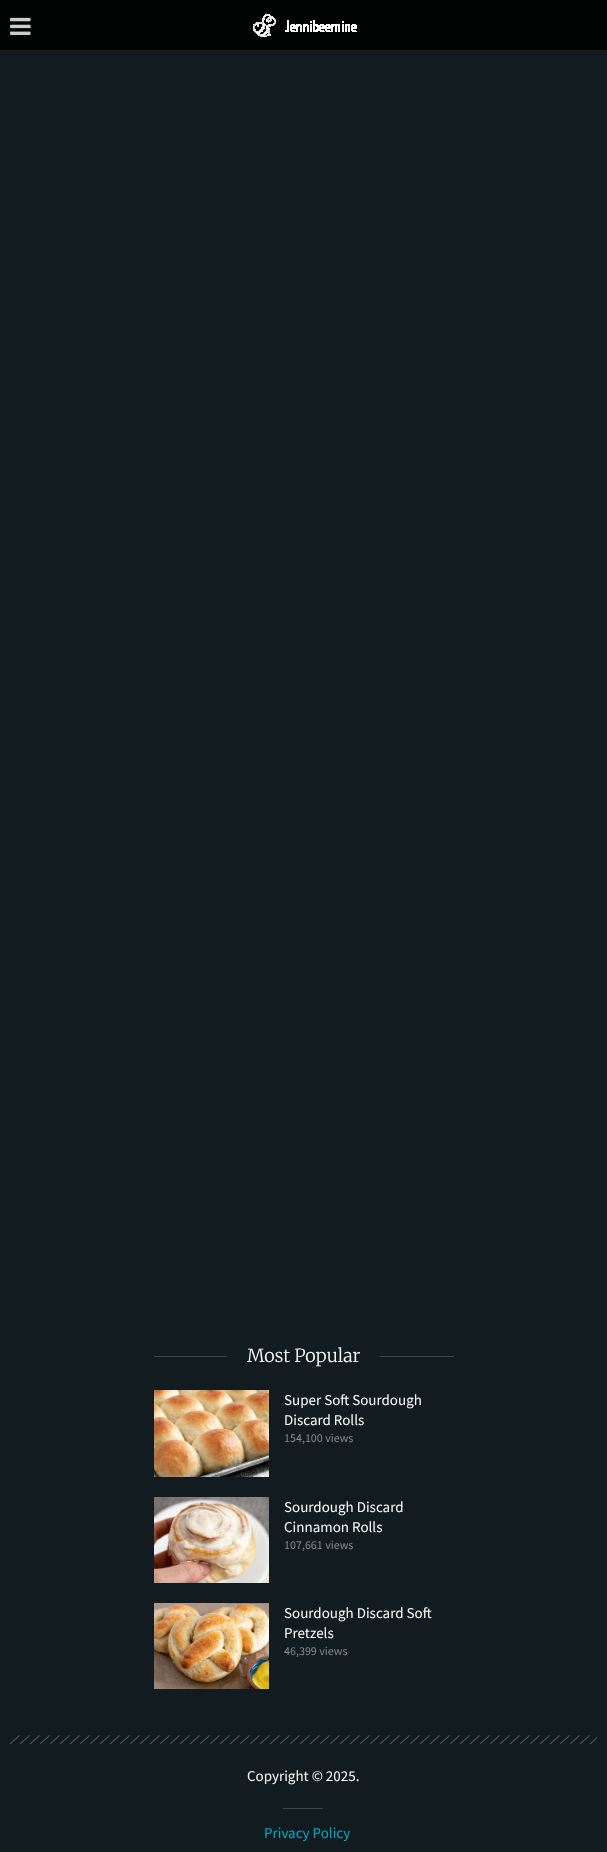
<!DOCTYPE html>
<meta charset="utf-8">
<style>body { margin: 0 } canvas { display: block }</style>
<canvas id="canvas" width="607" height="1852"></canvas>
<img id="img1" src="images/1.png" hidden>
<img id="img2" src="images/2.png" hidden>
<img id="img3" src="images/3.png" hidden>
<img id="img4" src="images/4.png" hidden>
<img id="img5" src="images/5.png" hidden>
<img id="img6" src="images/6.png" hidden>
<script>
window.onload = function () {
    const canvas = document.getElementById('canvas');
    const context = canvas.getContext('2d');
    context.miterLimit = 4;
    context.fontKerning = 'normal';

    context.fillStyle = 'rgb(18, 28, 32)';
    context.fillRect(0, 0, 607, 1852);
    context.fillStyle = 'rgb(2, 3, 3)';
    context.fillRect(0, 0, 607, 50);
    context.drawImage(document.getElementById('img1'), 10, 17, 21, 18);
    context.drawImage(document.getElementById('img2'), 253, 14, 104, 23);
    context.fillStyle = 'rgb(65, 71, 74)';
    context.fillRect(154, 1356, 300, 1);
    context.fillStyle = 'rgb(18, 28, 32)';
    context.fillRect(227, 1356, 153, 1);
    context.drawImage(document.getElementById('img3'), 154, 1390, 115, 87);
    context.drawImage(document.getElementById('img4'), 154, 1497, 115, 86);
    context.drawImage(document.getElementById('img5'), 154, 1603, 115, 86);
    context.drawImage(document.getElementById('img6'), 10, 1735, 587, 9);
    context.fillStyle = 'rgb(65, 71, 74)';
    context.fillRect(283, 1808, 40, 1);
    context.font = '300 18px Merriweather';
    context.fillStyle = 'rgb(255, 255, 255)';
    context.fillText('Most Popular', 247, 1362);
    context.font = '15px Source Sans Pro';
    context.fillText('Super Soft Sourdough', 284, 1405);
    context.fillText('Discard Rolls', 284, 1425);
    context.font = '12px Source Sans Pro';
    context.fillStyle = 'rgb(136, 136, 136)';
    context.fillText('154,100 views', 284, 1442);
    context.font = '15px Source Sans Pro';
    context.fillStyle = 'rgb(255, 255, 255)';
    context.fillText('Sourdough Discard', 284, 1512);
    context.fillText('Cinnamon Rolls', 284, 1532);
    context.font = '12px Source Sans Pro';
    context.fillStyle = 'rgb(136, 136, 136)';
    context.fillText('107,661 views', 284, 1549);
    context.font = '15px Source Sans Pro';
    context.fillStyle = 'rgb(255, 255, 255)';
    context.fillText('Sourdough Discard Soft', 284, 1618);
    context.fillText('Pretzels', 284, 1638);
    context.font = '12px Source Sans Pro';
    context.fillStyle = 'rgb(136, 136, 136)';
    context.fillText('46,399 views', 284, 1655);
    context.font = '15px Source Sans Pro';
    context.fillStyle = 'rgb(255, 255, 255)';
    context.fillText('Copyright © 2025.', 247, 1781);
    context.fillStyle = 'rgb(0, 172, 198)';
    context.fillText('Privacy Policy', 264, 1838);
};
</script>
